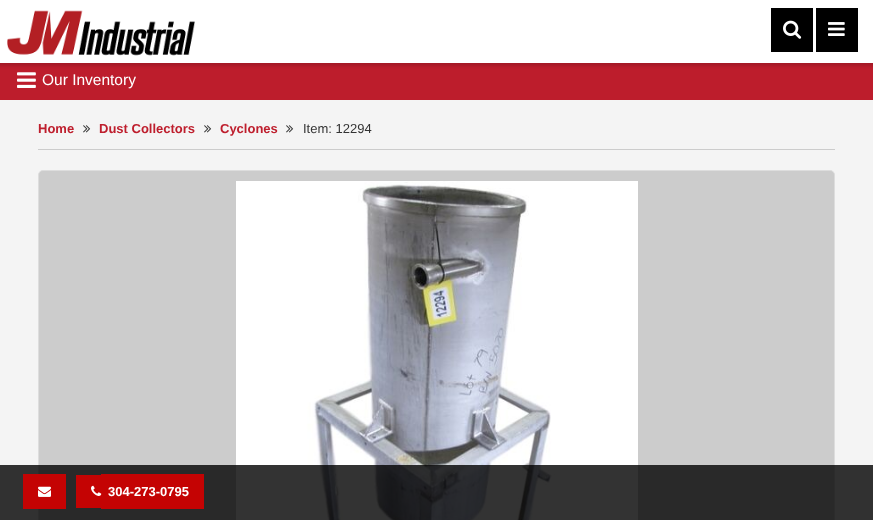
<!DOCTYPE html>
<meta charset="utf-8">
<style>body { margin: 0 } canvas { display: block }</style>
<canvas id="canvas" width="873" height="520"></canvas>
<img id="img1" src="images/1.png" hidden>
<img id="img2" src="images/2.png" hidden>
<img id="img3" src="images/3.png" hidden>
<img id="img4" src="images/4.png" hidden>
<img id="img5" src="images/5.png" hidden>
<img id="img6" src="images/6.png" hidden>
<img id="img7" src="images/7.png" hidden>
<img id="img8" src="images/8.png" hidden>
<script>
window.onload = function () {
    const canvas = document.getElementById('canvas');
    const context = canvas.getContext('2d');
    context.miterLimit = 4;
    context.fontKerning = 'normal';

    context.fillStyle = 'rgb(244, 244, 244)';
    context.fillRect(0, 0, 873, 520);
    context.fillStyle = 'rgb(189, 29, 44)';
    context.fillRect(0, 63, 873, 37);
    context.fillStyle = 'rgba(0, 0, 0, 0.13)';
    context.filter = 'blur(1.5px)';
    context.beginPath();
    context.rect(-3, -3, 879, 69);
    context.fill();
    context.filter = 'none';
    context.fillStyle = 'rgb(255, 255, 255)';
    context.fillRect(0, 0, 873, 63);
    context.drawImage(document.getElementById('img1'), 7, 10, 188, 46);
    context.fillStyle = 'rgb(0, 0, 0)';
    context.fillRect(771, 8, 42, 44);
    context.drawImage(document.getElementById('img2'), 783, 20, 19, 19);
    context.fillRect(816, 8, 42, 44);
    context.drawImage(document.getElementById('img3'), 828, 22, 17, 14);
    context.drawImage(document.getElementById('img4'), 17, 72, 19, 16);
    context.fillStyle = 'rgb(204, 204, 204)';
    context.fillRect(38, 149, 797, 1);
    context.drawImage(document.getElementById('img5'), 83, 125, 8, 8);
    context.drawImage(document.getElementById('img5'), 204, 125, 8, 8);
    context.drawImage(document.getElementById('img5'), 286, 125, 8, 8);
    context.beginPath();
    context.roundRect(38.5, 170.5, 796, 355, 4.5);
    context.fill();
    context.strokeStyle = 'rgb(221, 221, 221)';
    context.stroke();
    context.drawImage(document.getElementById('img6'), 236, 181, 402, 339);
    context.fillStyle = 'rgba(0, 0, 0, 0.8)';
    context.fillRect(0, 465, 873, 55);
    context.fillStyle = 'rgb(196, 3, 3)';
    context.fillRect(23, 474, 43, 35);
    context.drawImage(document.getElementById('img7'), 38, 486, 13, 11);
    context.fillRect(76, 475, 25, 33);
    context.fillRect(101, 474, 103, 35);
    context.drawImage(document.getElementById('img8'), 91, 485, 11, 11);
    context.font = '15.5px Liberation Sans';
    context.fillStyle = 'rgb(255, 255, 255)';
    context.fillText('Our Inventory', 42, 85);
    context.font = 'bold 13px Liberation Sans';
    context.fillStyle = 'rgb(190, 30, 45)';
    context.fillText('Home', 38, 133);
    context.fillText('Dust Collectors', 99, 133);
    context.fillText('Cyclones', 220, 133);
    context.font = '13px Liberation Sans';
    context.fillStyle = 'rgb(51, 51, 51)';
    context.fillText('Item: 12294', 303, 133);
    context.font = 'bold 13px Liberation Sans';
    context.fillStyle = 'rgb(255, 255, 255)';
    context.fillText('304-273-0795', 108, 496);
};
</script>
